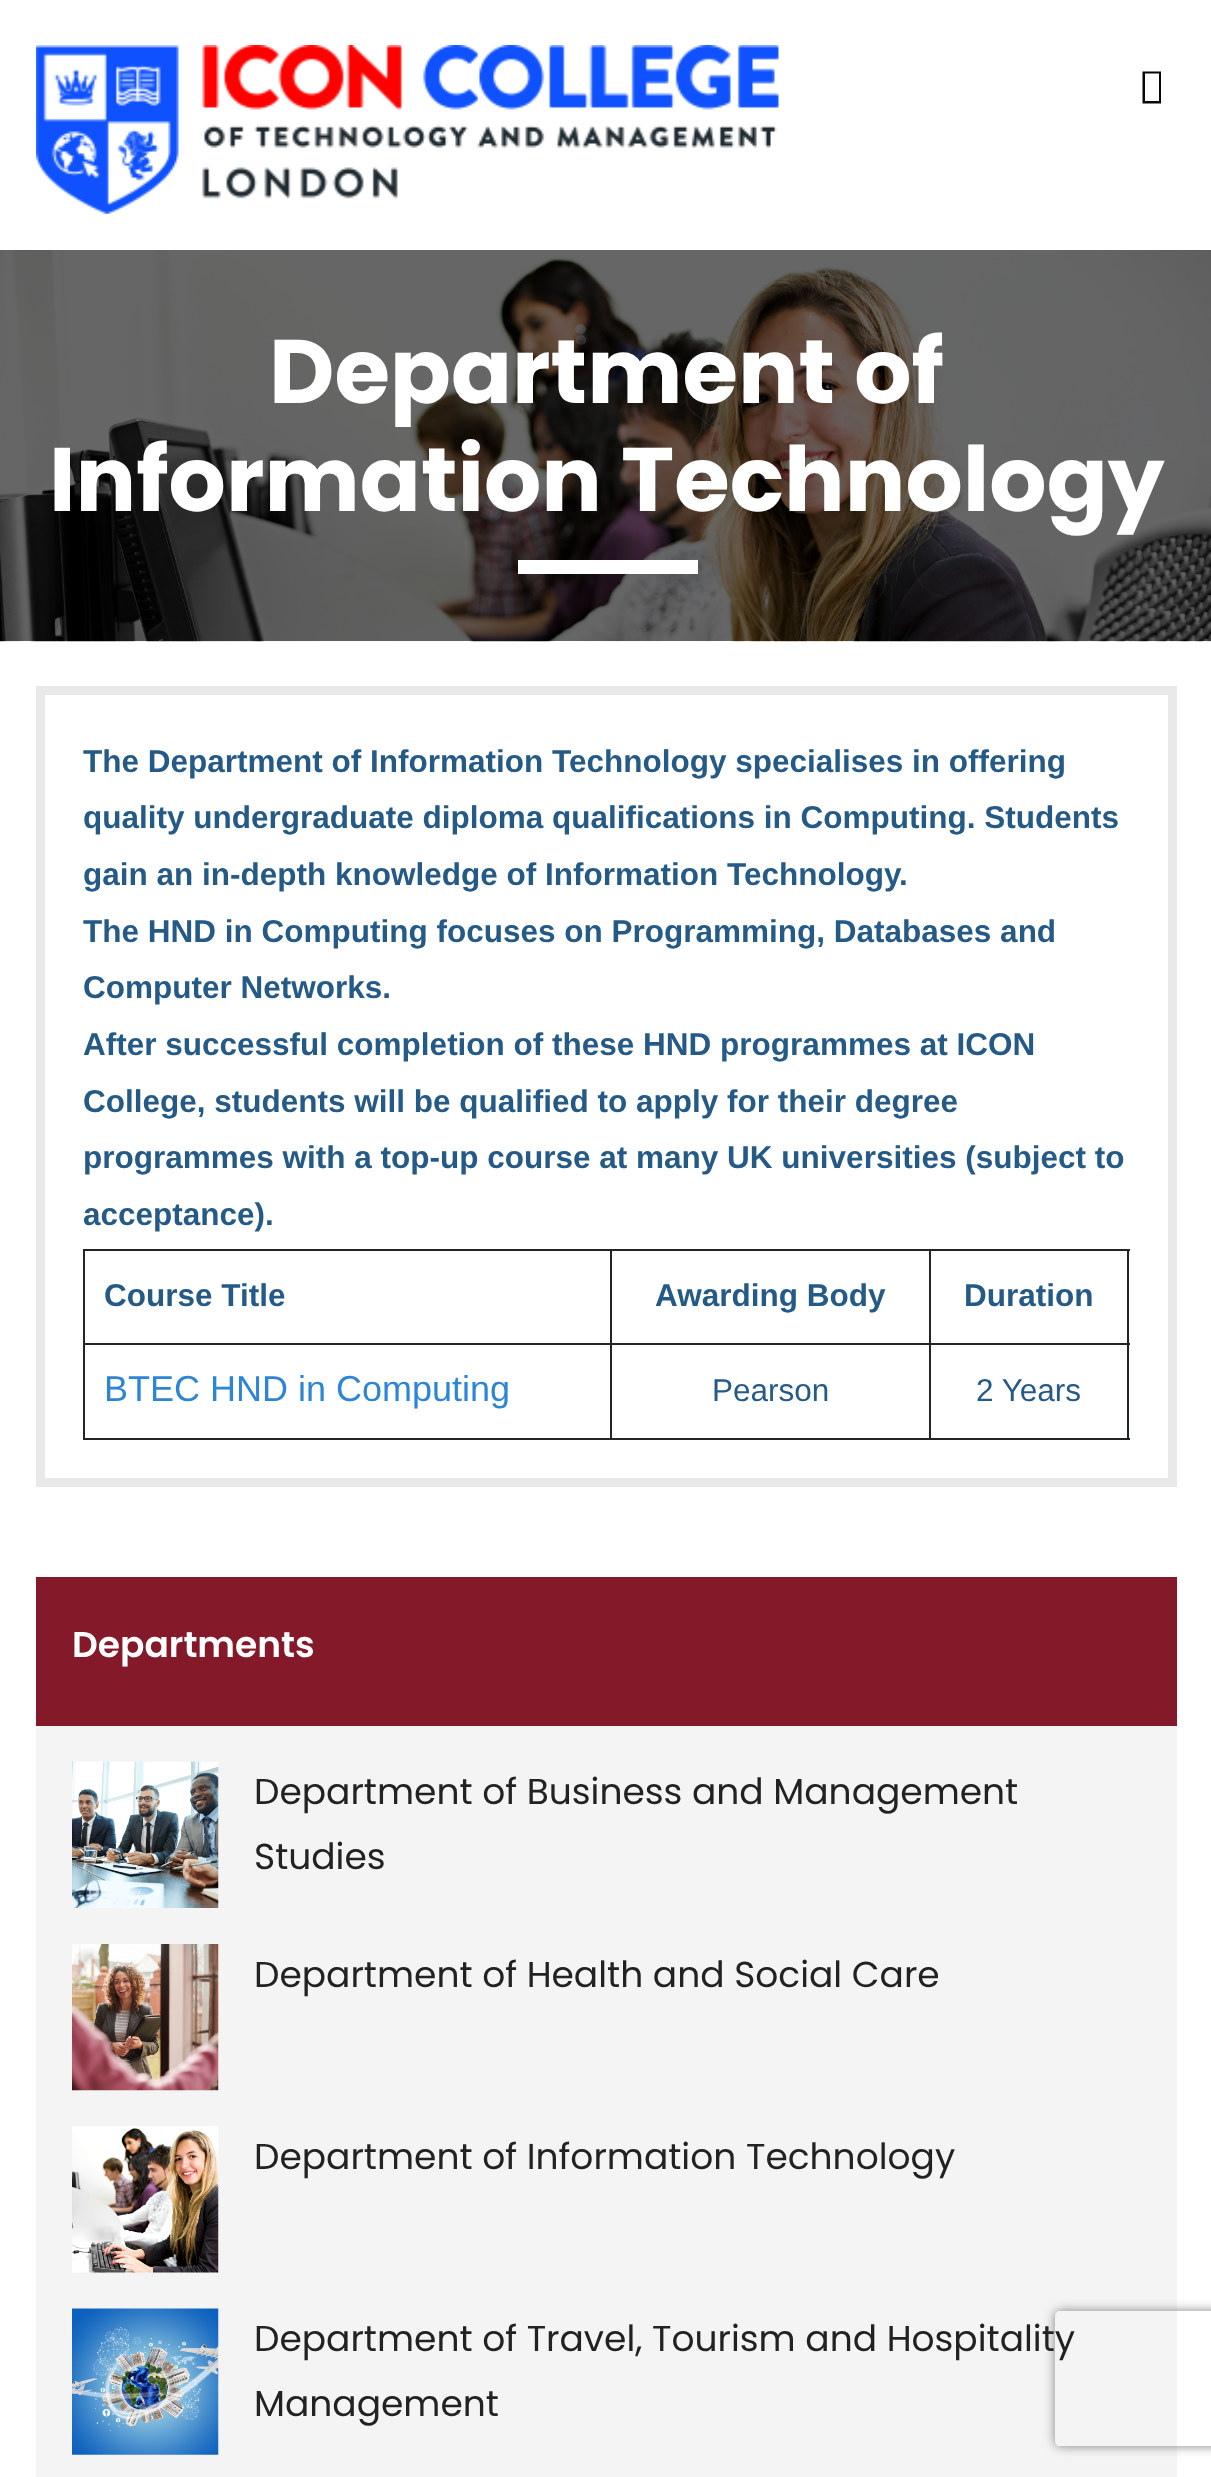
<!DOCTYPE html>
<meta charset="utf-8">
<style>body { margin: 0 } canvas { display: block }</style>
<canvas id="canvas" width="1211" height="2477"></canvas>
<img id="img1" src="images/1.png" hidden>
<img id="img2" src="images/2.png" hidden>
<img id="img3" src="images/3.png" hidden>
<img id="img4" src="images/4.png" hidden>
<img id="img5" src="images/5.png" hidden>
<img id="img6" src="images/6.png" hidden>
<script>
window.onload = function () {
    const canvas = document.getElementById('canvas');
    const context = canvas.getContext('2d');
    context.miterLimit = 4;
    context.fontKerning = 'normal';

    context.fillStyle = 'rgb(255, 255, 255)';
    context.fillRect(0, 0, 1211, 2477);
    context.drawImage(document.getElementById('img1'), 36, 45, 743, 169);
    context.fillStyle = 'rgb(7, 7, 7)';
    context.beginPath();
    context.moveTo(1142.5, 103.5);
    context.lineTo(1142.5, 71.5);
    context.lineTo(1161, 71.5);
    context.lineTo(1161, 103.5);
    context.closePath();
    context.moveTo(1145, 101);
    context.lineTo(1159, 101);
    context.lineTo(1159, 73.5);
    context.lineTo(1145, 73.5);
    context.closePath();
    context.fill();
    context.drawImage(document.getElementById('img2'), 0, 249, 1211, 393);
    context.fillStyle = 'rgb(255, 255, 255)';
    context.fillRect(518, 560, 180, 14);
    context.strokeStyle = 'rgb(233, 233, 233)';
    context.lineWidth = 9;
    context.strokeRect(40.5, 690.5, 1132, 792);
    context.fillStyle = 'rgb(33, 37, 41)';
    context.fillRect(83, 1249, 1047, 2);
    context.fillRect(83, 1343, 1047, 2);
    context.fillRect(83, 1438, 1047, 2);
    context.fillRect(83, 1249, 2, 191);
    context.fillRect(610, 1249, 2, 191);
    context.fillRect(1127, 1249, 2, 191);
    context.fillRect(929, 1249, 2, 191);
    context.fillStyle = 'rgb(132, 26, 41)';
    context.fillRect(36, 1577, 1141, 149);
    context.fillStyle = 'rgb(244, 244, 244)';
    context.fillRect(36, 1726, 1141, 751);
    context.drawImage(document.getElementById('img3'), 72, 1761, 147, 147);
    context.drawImage(document.getElementById('img4'), 72, 1944, 147, 147);
    context.drawImage(document.getElementById('img5'), 72, 2126, 147, 147);
    context.drawImage(document.getElementById('img6'), 72, 2308, 147, 147);
    context.save();
    context.beginPath();
    context.moveTo(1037, 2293);
    context.lineTo(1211, 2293);
    context.lineTo(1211, 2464);
    context.lineTo(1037, 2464);
    context.closePath();
    context.moveTo(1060, 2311);
    context.lineTo(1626, 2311);
    context.bezierCurveTo(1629, 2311, 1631, 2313, 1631, 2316);
    context.lineTo(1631, 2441);
    context.bezierCurveTo(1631, 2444, 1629, 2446, 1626, 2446);
    context.lineTo(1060, 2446);
    context.bezierCurveTo(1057, 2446, 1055, 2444, 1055, 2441);
    context.lineTo(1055, 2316);
    context.bezierCurveTo(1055, 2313, 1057, 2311, 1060, 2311);
    context.closePath();
    context.clip('evenodd');
    context.fillStyle = 'rgb(128, 128, 128)';
    context.filter = 'blur(5.5px)';
    context.beginPath();
    context.roundRect(1055, 2311, 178, 135, 5);
    context.fill();
    context.filter = 'none';
    context.restore();
    context.font = 'bold 90px Poppins';
    context.fillStyle = 'rgb(255, 255, 255)';
    context.fillText('Department of', 269, 403);
    context.fillText('Information Technology', 49, 511);
    context.font = 'bold 31.5px Liberation Sans';
    context.fillStyle = 'rgb(37, 90, 135)';
    context.fillText('The Department of Information Technology specialises in offering', 83, 772);
    context.fillText('quality undergraduate diploma qualifications in Computing. Students', 83, 828);
    context.fillText('gain an in-depth knowledge of Information Technology.', 83, 885);
    context.fillText('The HND in Computing focuses on Programming, Databases and', 83, 942);
    context.fillText('Computer Networks.', 83, 998);
    context.fillText('After successful completion of these HND programmes at ICON', 83, 1055);
    context.fillText('College, students will be qualified to apply for their degree', 83, 1112);
    context.fillText('programmes with a top-up course at many UK universities (subject to', 83, 1168);
    context.fillText('acceptance).', 83, 1225);
    context.fillText('Course Title', 104, 1306);
    context.fillText('Awarding Body', 655, 1306);
    context.fillText('Duration', 964, 1306);
    context.font = '36px Liberation Sans';
    context.fillStyle = 'rgb(46, 133, 213)';
    context.fillText('BTEC HND in Computing', 104, 1401);
    context.font = '31.5px Liberation Sans';
    context.fillStyle = 'rgb(37, 90, 135)';
    context.fillText('Pearson', 712, 1401);
    context.fillText('2 Years', 976, 1401);
    context.font = '600 36px Poppins';
    context.fillStyle = 'rgb(255, 255, 255)';
    context.fillText('Departments', 72, 1657);
    context.font = '36px Poppins';
    context.fillStyle = 'rgb(34, 34, 34)';
    context.fillText('Department of Business and Management', 254, 1804);
    context.fillText('Studies', 254, 1869);
    context.fillText('Department of Health and Social Care', 254, 1987);
    context.fillText('Department of Information Technology', 254, 2169);
    context.fillText('Department of Travel, Tourism and Hospitality', 254, 2351);
    context.fillText('Management', 254, 2416);
};
</script>
